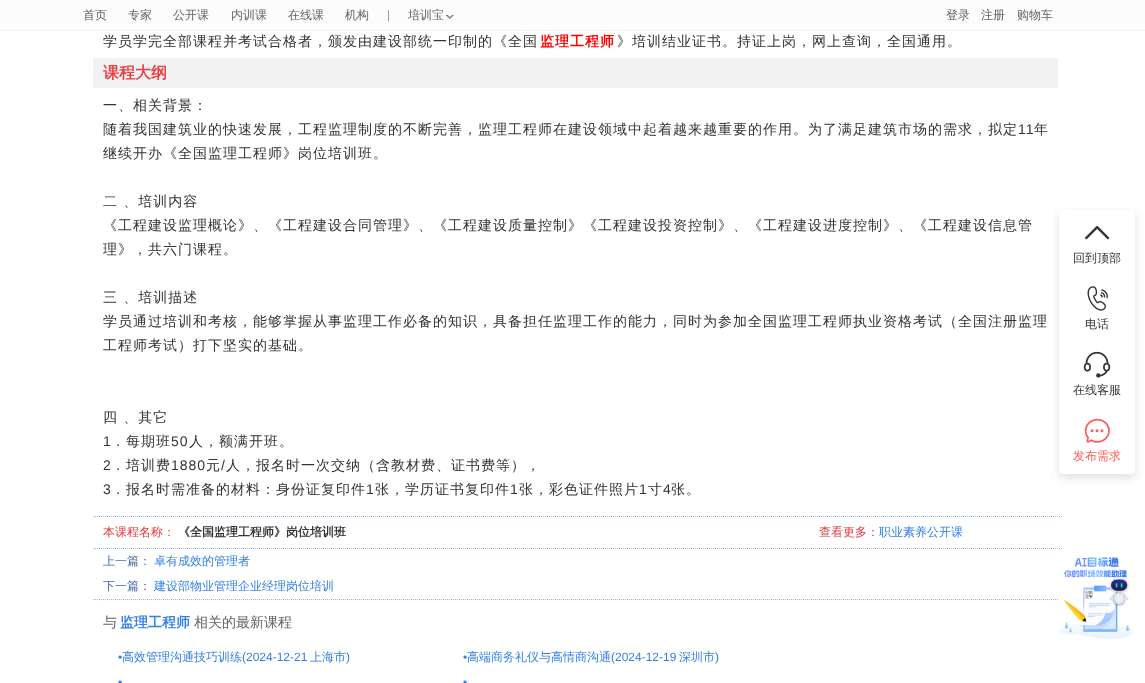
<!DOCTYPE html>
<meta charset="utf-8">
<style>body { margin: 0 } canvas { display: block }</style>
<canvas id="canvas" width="1145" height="683"></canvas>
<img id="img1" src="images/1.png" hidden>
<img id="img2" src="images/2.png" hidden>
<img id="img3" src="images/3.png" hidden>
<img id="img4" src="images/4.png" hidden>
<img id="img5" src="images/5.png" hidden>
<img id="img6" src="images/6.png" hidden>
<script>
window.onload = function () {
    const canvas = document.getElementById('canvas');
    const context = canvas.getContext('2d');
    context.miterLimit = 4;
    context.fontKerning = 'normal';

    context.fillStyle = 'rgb(255, 255, 255)';
    context.fillRect(0, 0, 1145, 683);
    context.fillStyle = 'rgb(252, 252, 252)';
    context.fillRect(0, 0, 1145, 30);
    context.fillStyle = 'rgb(239, 239, 239)';
    context.fillRect(0, 30, 1145, 1);
    context.drawImage(document.getElementById('img1'), 446, 15, 8, 4);
    context.fillStyle = 'rgb(242, 242, 242)';
    context.fillRect(93, 58, 965, 30);
    context.beginPath();
    context.moveTo(93, 516.5);
    context.lineTo(1063, 516.5);
    context.strokeStyle = 'rgb(147, 188, 241)';
    context.setLineDash([1, 1]);
    context.stroke();
    context.beginPath();
    context.moveTo(93, 548.5);
    context.lineTo(1063, 548.5);
    context.stroke();
    context.beginPath();
    context.moveTo(93, 599.5);
    context.lineTo(1063, 599.5);
    context.stroke();
    context.fillStyle = 'rgba(0, 0, 0, 0.12)';
    context.filter = 'blur(5px)';
    context.beginPath();
    context.roundRect(1059, 214, 76, 264, 4);
    context.fill();
    context.filter = 'none';
    context.fillStyle = 'rgb(255, 255, 255)';
    context.beginPath();
    context.roundRect(1059, 210, 76, 264, 4);
    context.fill();
    context.drawImage(document.getElementById('img2'), 1085, 226, 25, 14);
    context.drawImage(document.getElementById('img3'), 1087, 286, 21, 25);
    context.drawImage(document.getElementById('img4'), 1083, 351, 28, 27);
    context.drawImage(document.getElementById('img5'), 1084, 418, 26, 25);
    context.drawImage(document.getElementById('img6'), 1059, 557, 74, 82);
    context.font = '500 12px WenQuanYi Zen Hei';
    context.fillStyle = 'rgb(99, 99, 99)';
    context.fillText('首页', 83, 19);
    context.fillText('专家', 128, 19);
    context.fillText('公开课', 173, 19);
    context.fillText('内训课', 231, 19);
    context.fillText('在线课', 288, 19);
    context.fillText('机构', 345, 19);
    context.font = '12px Liberation Sans';
    context.fillStyle = 'rgb(151, 151, 151)';
    context.fillText('|', 387, 19);
    context.font = '500 12px WenQuanYi Zen Hei';
    context.fillStyle = 'rgb(99, 99, 99)';
    context.fillText('培训宝', 408, 19);
    context.fillText('登录', 946, 19);
    context.fillText('注册', 981, 19);
    context.fillText('购物车', 1017, 19);
    context.letterSpacing = '1px';
    context.font = '500 14px WenQuanYi Zen Hei';
    context.fillStyle = 'rgb(51, 51, 51)';
    context.fillText('学员学完全部课程并考试合格者，颁发由建设部统一印制的《全国', 103, 46);
    context.font = 'bold 14px WenQuanYi Zen Hei';
    context.fillStyle = 'rgb(255, 0, 0)';
    context.fillText('监理工程师', 540, 46);
    context.font = '500 14px WenQuanYi Zen Hei';
    context.fillStyle = 'rgb(51, 51, 51)';
    context.fillText('》培训结业证书。持证上岗，网上查询，全国通用。', 617, 46);
    context.letterSpacing = '0px';
    context.font = 'bold 16px WenQuanYi Zen Hei';
    context.fillStyle = 'rgb(229, 64, 68)';
    context.fillText('课程大纲', 103, 78);
    context.letterSpacing = '1px';
    context.font = '500 14px WenQuanYi Zen Hei';
    context.fillStyle = 'rgb(51, 51, 51)';
    context.fillText('一、相关背景：', 103, 110);
    context.fillText('随着我国建筑业的快速发展，工程监理制度的不断完善，监理工程师在建设领域中起着越来越重要的作用。为了满足建筑市场的需求，拟定', 103, 134);
    context.font = '14px Liberation Sans';
    context.fillText('11', 1018, 134);
    context.font = '500 14px WenQuanYi Zen Hei';
    context.fillText('年', 1034, 134);
    context.fillText('继续开办《全国监理工程师》岗位培训班。', 103, 158);
    context.fillText('二 、培训内容', 103, 206);
    context.fillText('《工程建设监理概论》、《工程建设合同管理》、《工程建设质量控制》《工程建设投资控制》、《工程建设进度控制》、《工程建设信息管', 103, 230);
    context.fillText('理》，共六门课程。', 103, 254);
    context.fillText('三 、培训描述', 103, 302);
    context.fillText('学员通过培训和考核，能够掌握从事监理工作必备的知识，具备担任监理工作的能力，同时为参加全国监理工程师执业资格考试（全国注册监理', 103, 326);
    context.fillText('工程师考试）打下坚实的基础。', 103, 350);
    context.fillText('四 、其它', 103, 422);
    context.font = '14px Liberation Sans';
    context.fillText('1', 103, 446);
    context.font = '500 14px WenQuanYi Zen Hei';
    context.fillText('．每期班', 111, 446);
    context.font = '14px Liberation Sans';
    context.fillText('50', 171, 446);
    context.font = '500 14px WenQuanYi Zen Hei';
    context.fillText('人，额满开班。', 189, 446);
    context.font = '14px Liberation Sans';
    context.fillText('2', 103, 470);
    context.font = '500 14px WenQuanYi Zen Hei';
    context.fillText('．培训费', 111, 470);
    context.font = '14px Liberation Sans';
    context.fillText('1880', 171, 470);
    context.font = '500 14px WenQuanYi Zen Hei';
    context.fillText('元', 206, 470);
    context.font = '14px Liberation Sans';
    context.fillText('/', 221, 470);
    context.font = '500 14px WenQuanYi Zen Hei';
    context.fillText('人，报名时一次交纳（含教材费、证书费等），', 226, 470);
    context.font = '14px Liberation Sans';
    context.fillText('3', 103, 494);
    context.font = '500 14px WenQuanYi Zen Hei';
    context.fillText('．报名时需准备的材料：身份证复印件', 111, 494);
    context.font = '14px Liberation Sans';
    context.fillText('1', 366, 494);
    context.font = '500 14px WenQuanYi Zen Hei';
    context.fillText('张，学历证书复印件', 375, 494);
    context.font = '14px Liberation Sans';
    context.fillText('1', 510, 494);
    context.font = '500 14px WenQuanYi Zen Hei';
    context.fillText('张，彩色证件照片', 519, 494);
    context.font = '14px Liberation Sans';
    context.fillText('1', 639, 494);
    context.font = '500 14px WenQuanYi Zen Hei';
    context.fillText('寸', 648, 494);
    context.font = '14px Liberation Sans';
    context.fillText('4', 663, 494);
    context.font = '500 14px WenQuanYi Zen Hei';
    context.fillText('张。', 671, 494);
    context.letterSpacing = '0px';
    context.font = '500 12px WenQuanYi Zen Hei';
    context.fillStyle = 'rgb(226, 57, 60)';
    context.fillText('本课程名称：', 103, 536);
    context.font = 'bold 12px WenQuanYi Zen Hei';
    context.fillStyle = 'rgb(51, 51, 51)';
    context.fillText('《全国监理工程师》岗位培训班', 178, 536);
    context.font = '500 12px WenQuanYi Zen Hei';
    context.fillStyle = 'rgb(226, 57, 60)';
    context.fillText('查看更多：', 819, 536);
    context.fillStyle = 'rgb(51, 128, 229)';
    context.fillText('职业素养公开课', 879, 536);
    context.fillStyle = 'rgb(69, 106, 164)';
    context.fillText('上一篇：', 103, 565);
    context.fillStyle = 'rgb(51, 128, 229)';
    context.fillText('卓有成效的管理者', 154, 565);
    context.fillStyle = 'rgb(69, 106, 164)';
    context.fillText('下一篇：', 103, 590);
    context.fillStyle = 'rgb(51, 128, 229)';
    context.fillText('建设部物业管理企业经理岗位培训', 154, 590);
    context.font = '500 14px WenQuanYi Zen Hei';
    context.fillStyle = 'rgb(99, 99, 99)';
    context.fillText('与', 103, 627);
    context.font = 'bold 14px WenQuanYi Zen Hei';
    context.fillStyle = 'rgb(51, 128, 229)';
    context.fillText('监理工程师', 120, 627);
    context.font = '500 14px WenQuanYi Zen Hei';
    context.fillStyle = 'rgb(99, 99, 99)';
    context.fillText('相关的最新课程', 194, 627);
    context.font = '12px Liberation Sans';
    context.fillStyle = 'rgb(51, 128, 229)';
    context.fillText('•', 118, 661);
    context.font = '500 12px WenQuanYi Zen Hei';
    context.fillText('高效管理沟通技巧训练', 122, 661);
    context.font = '12px Liberation Sans';
    context.fillText('(2024-12-21', 242, 661);
    context.font = '500 12px WenQuanYi Zen Hei';
    context.fillText('上海市', 310, 661);
    context.font = '12px Liberation Sans';
    context.fillText(')', 346, 661);
    context.fillText('•', 463, 661);
    context.font = '500 12px WenQuanYi Zen Hei';
    context.fillText('高端商务礼仪与高情商沟通', 467, 661);
    context.font = '12px Liberation Sans';
    context.fillText('(2024-12-19', 611, 661);
    context.font = '500 12px WenQuanYi Zen Hei';
    context.fillText('深圳市', 679, 661);
    context.font = '12px Liberation Sans';
    context.fillText(')', 715, 661);
    context.fillText('•', 118, 686);
    context.fillText('•', 463, 686);
    context.font = '500 12px WenQuanYi Zen Hei';
    context.fillStyle = 'rgb(51, 51, 51)';
    context.fillText('回到顶部', 1073, 262);
    context.fillText('电话', 1085, 328);
    context.fillText('在线客服', 1073, 394);
    context.fillStyle = 'rgb(255, 91, 91)';
    context.fillText('发布需求', 1073, 460);
};
</script>
